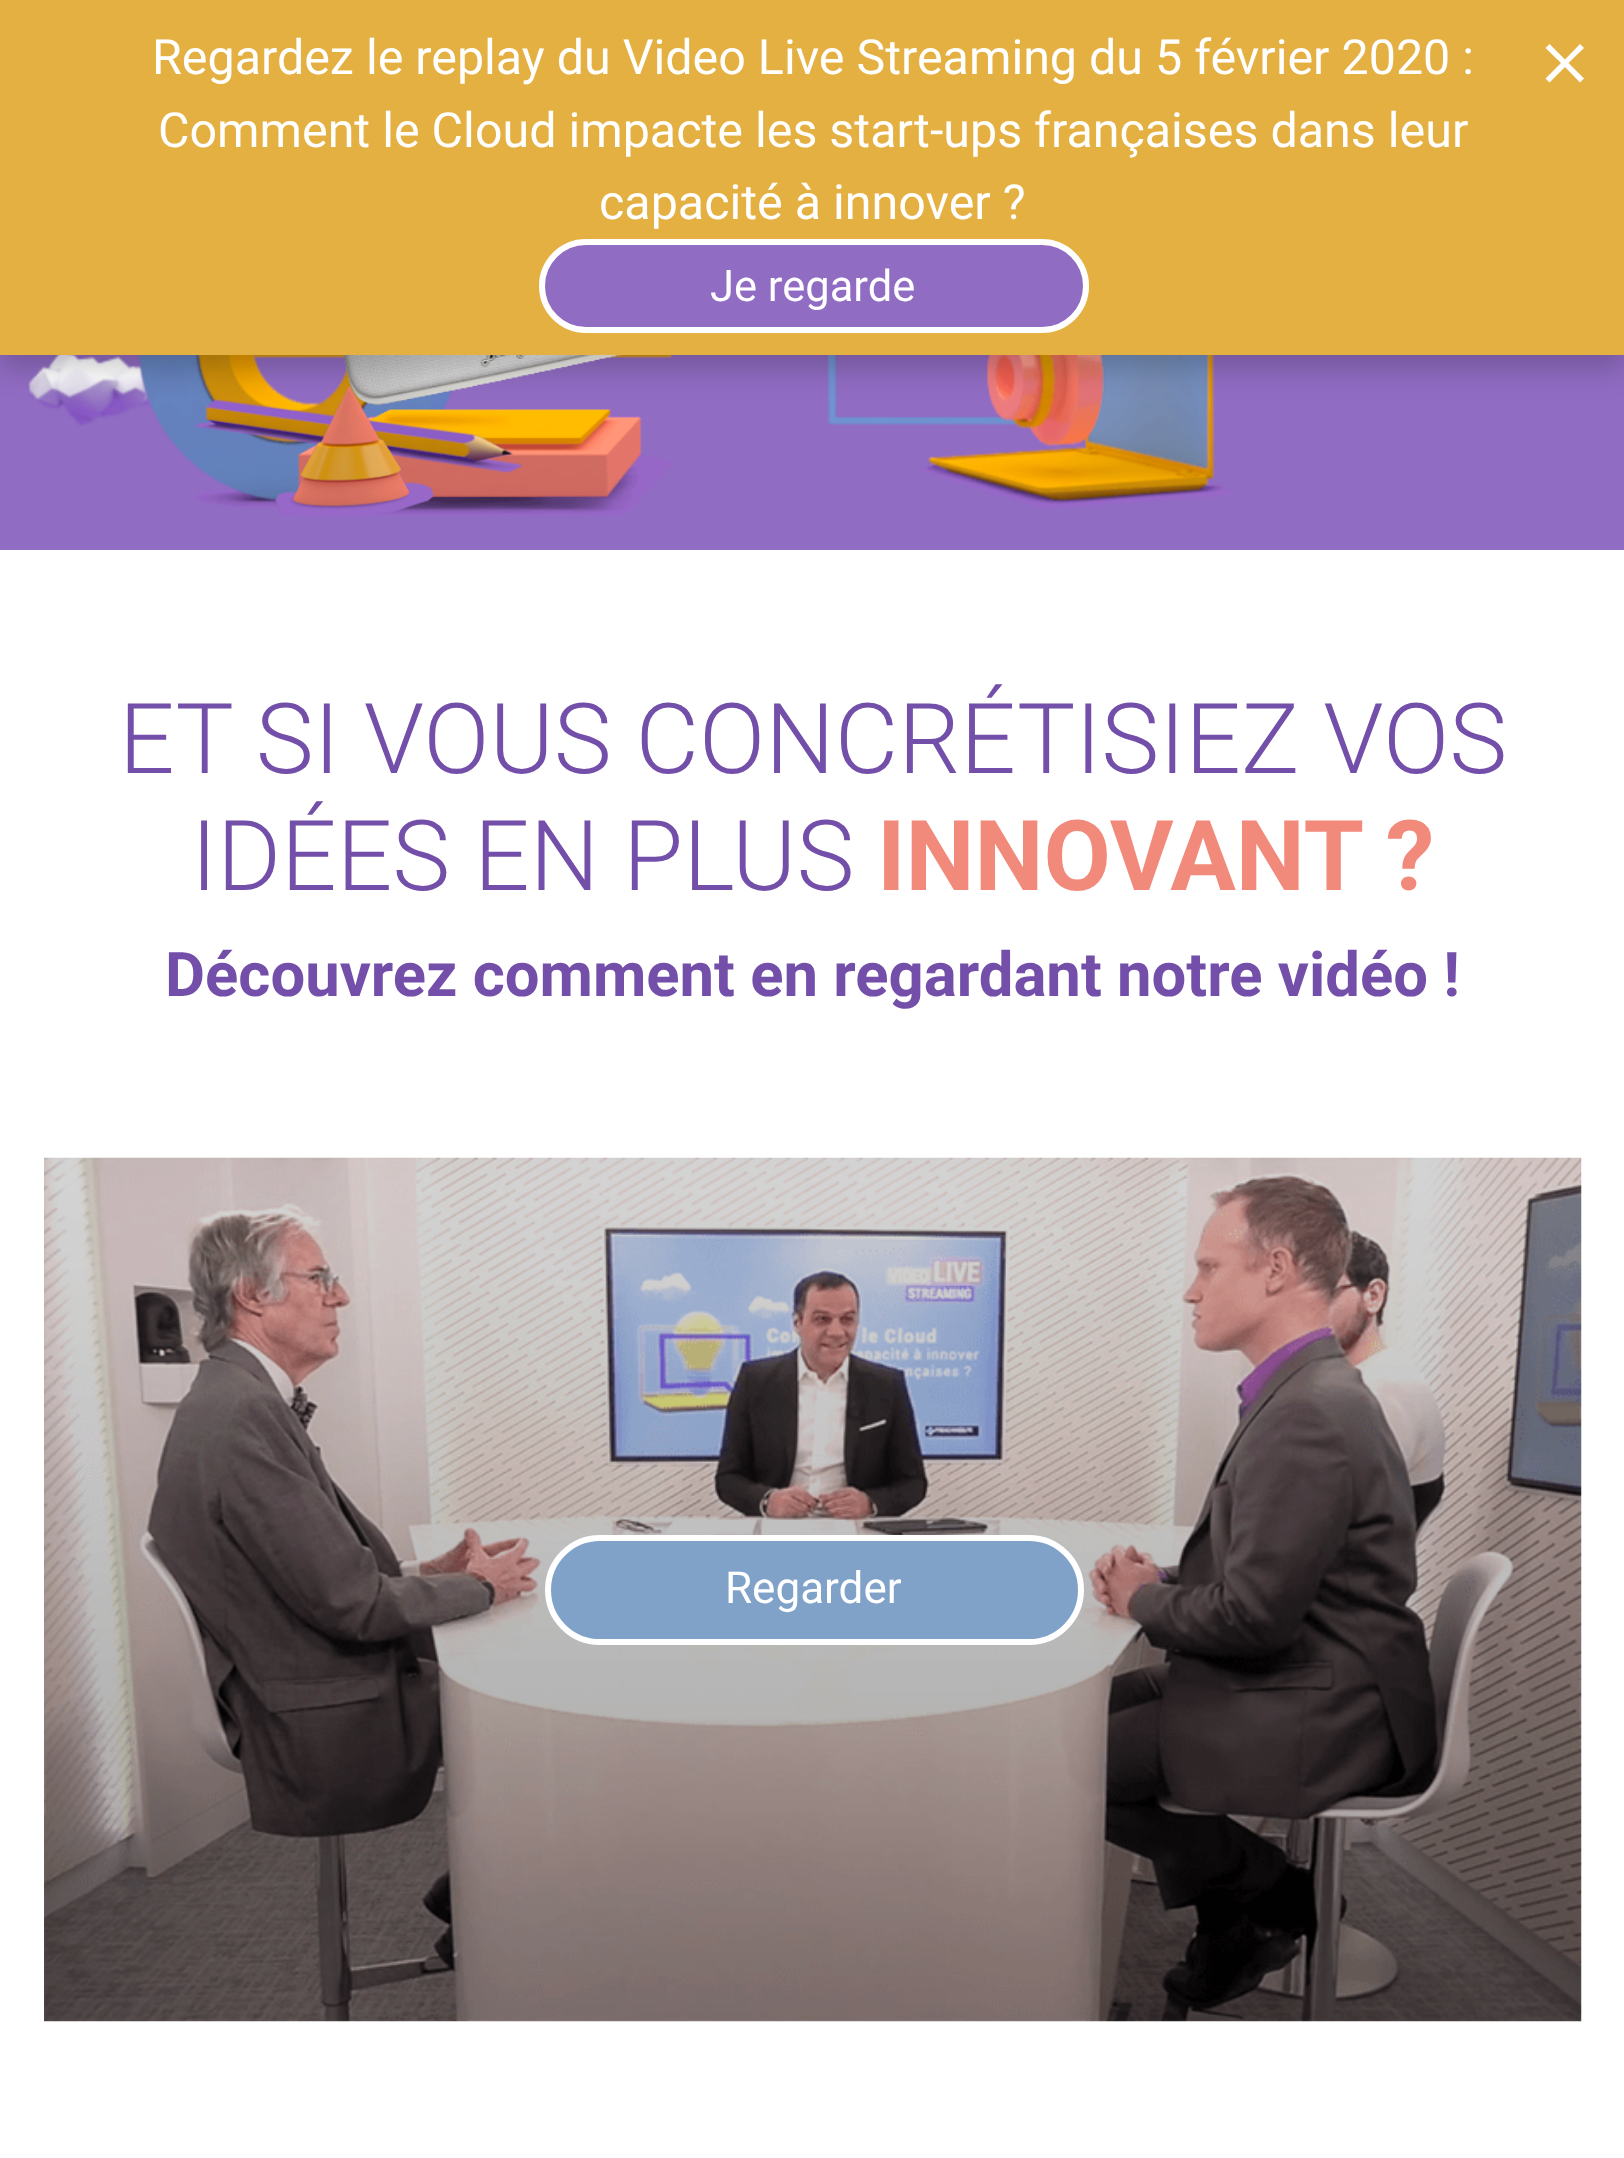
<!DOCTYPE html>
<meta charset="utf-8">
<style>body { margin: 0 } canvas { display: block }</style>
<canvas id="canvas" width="1624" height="2158"></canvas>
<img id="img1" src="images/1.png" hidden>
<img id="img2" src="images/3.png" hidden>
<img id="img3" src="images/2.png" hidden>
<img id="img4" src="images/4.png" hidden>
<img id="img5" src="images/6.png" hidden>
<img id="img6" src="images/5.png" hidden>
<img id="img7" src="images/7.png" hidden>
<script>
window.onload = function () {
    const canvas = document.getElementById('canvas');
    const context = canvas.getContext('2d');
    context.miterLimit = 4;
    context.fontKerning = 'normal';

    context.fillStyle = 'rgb(145, 108, 195)';
    context.fillRect(0, 0, 1624, 2158);
    context.drawImage(document.getElementById('img1'), 28, 355, 124, 71);
    context.drawImage(document.getElementById('img2'), 252, 355, 771, 70);
    context.drawImage(document.getElementById('img3'), 138, 355, 1095, 154);
    context.drawImage(document.getElementById('img4'), 277, 355, 395, 161);
    context.drawImage(document.getElementById('img5'), 193, 399, 330, 75);
    context.drawImage(document.getElementById('img6'), 275, 385, 159, 132);
    context.fillStyle = 'rgba(0, 0, 0, 0.2)';
    context.filter = 'blur(14px)';
    context.beginPath();
    context.rect(0, 14, 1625, 355);
    context.fill();
    context.filter = 'none';
    context.fillStyle = 'rgb(229, 176, 66)';
    context.fillRect(0, 0, 1624, 355);
    context.fillStyle = 'rgb(145, 108, 195)';
    context.beginPath();
    context.roundRect(542, 242, 544, 88, 44);
    context.fill();
    context.strokeStyle = 'rgb(255, 255, 255)';
    context.lineWidth = 6;
    context.stroke();
    context.fillStyle = 'rgb(255, 255, 255)';
    context.beginPath();
    context.moveTo(1584, 48);
    context.lineTo(1580, 44);
    context.lineTo(1565, 59.5);
    context.lineTo(1549.5, 44);
    context.lineTo(1545.5, 48);
    context.lineTo(1561, 63);
    context.lineTo(1545.5, 78.5);
    context.lineTo(1549.5, 82.5);
    context.lineTo(1565, 67);
    context.lineTo(1580, 82.5);
    context.lineTo(1584, 78.5);
    context.lineTo(1568.5, 63);
    context.closePath();
    context.fill();
    context.fillRect(0, 550, 1624, 1608);
    context.drawImage(document.getElementById('img7'), 44, 1157, 1538, 865);
    context.fillStyle = 'rgb(128, 162, 201)';
    context.beginPath();
    context.roundRect(548, 1538, 533, 104, 52);
    context.fill();
    context.stroke();
    context.font = '48.4px Roboto';
    context.fillStyle = 'rgb(255, 255, 255)';
    context.fillText('Regardez le replay du Video Live Streaming du 5 février 2020 :', 152, 74);
    context.fillText('Comment le Cloud impacte les start-ups françaises dans leur', 158, 147);
    context.fillText('capacité à innover ?', 599, 219);
    context.font = '43.5px Roboto';
    context.fillText('Je regarde', 710, 301);
    context.font = '300 97.75px Roboto';
    context.fillStyle = 'rgb(115, 79, 170)';
    context.fillText('ET SI VOUS CONCRÉTISIEZ VOS', 119, 773);
    context.fillText('IDÉES EN PLUS', 191, 890);
    context.font = 'bold 97.75px Roboto';
    context.fillStyle = 'rgb(242, 138, 123)';
    context.fillText('INNOVANT ?', 877, 890);
    context.font = 'bold 61.6px Roboto';
    context.fillStyle = 'rgb(115, 79, 170)';
    context.fillText('Découvrez comment en regardant notre vidéo !', 165, 996);
    context.font = '44px Roboto';
    context.fillStyle = 'rgb(255, 255, 255)';
    context.fillText('Regarder', 725, 1603);
};
</script>
